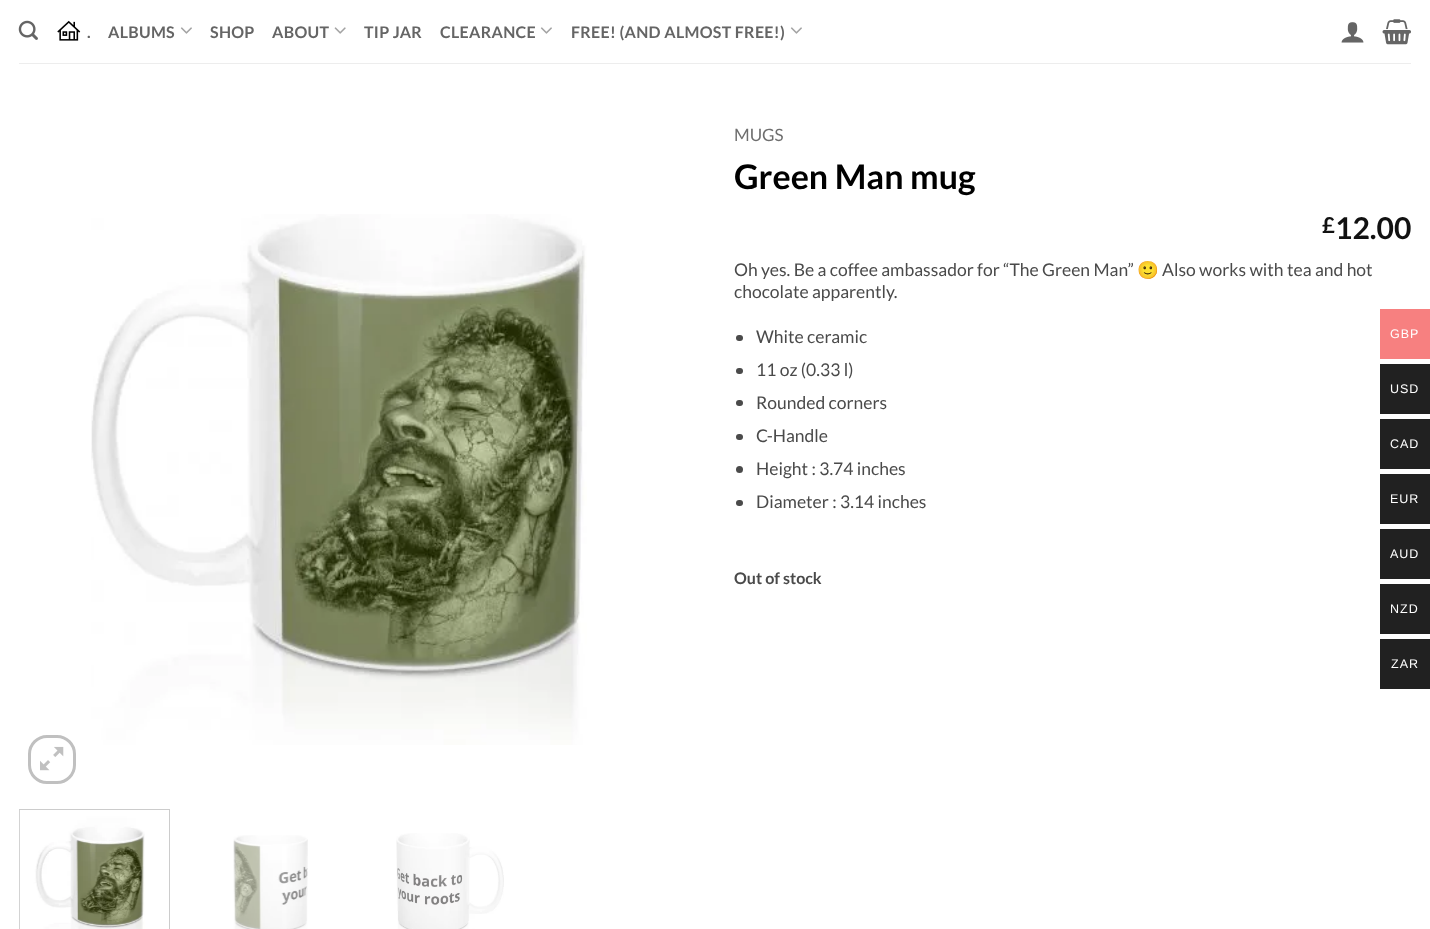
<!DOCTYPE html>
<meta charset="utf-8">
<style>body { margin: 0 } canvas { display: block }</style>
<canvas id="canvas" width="1430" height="929"></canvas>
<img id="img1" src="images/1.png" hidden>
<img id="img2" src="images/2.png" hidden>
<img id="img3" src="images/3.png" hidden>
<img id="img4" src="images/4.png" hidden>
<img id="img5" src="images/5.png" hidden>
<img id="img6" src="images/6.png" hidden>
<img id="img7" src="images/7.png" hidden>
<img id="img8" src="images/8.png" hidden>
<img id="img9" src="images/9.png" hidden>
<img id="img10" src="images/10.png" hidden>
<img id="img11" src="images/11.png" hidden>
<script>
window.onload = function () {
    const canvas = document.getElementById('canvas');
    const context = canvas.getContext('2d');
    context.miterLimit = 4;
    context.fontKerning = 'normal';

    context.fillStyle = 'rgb(255, 255, 255)';
    context.fillRect(0, 0, 1430, 929);
    context.drawImage(document.getElementById('img1'), 18, 20, 20, 20);
    context.drawImage(document.getElementById('img2'), 57, 20, 24, 21);
    context.drawImage(document.getElementById('img3'), 180, 27, 12, 7);
    context.drawImage(document.getElementById('img4'), 334, 27, 12, 7);
    context.drawImage(document.getElementById('img3'), 540, 27, 12, 7);
    context.drawImage(document.getElementById('img3'), 790, 27, 12, 7);
    context.drawImage(document.getElementById('img5'), 1341, 22, 23, 21);
    context.drawImage(document.getElementById('img6'), 1382, 19, 29, 26);
    context.fillStyle = 'rgb(237, 237, 237)';
    context.fillRect(19, 63, 1392, 1);
    context.drawImage(document.getElementById('img7'), 91, 214, 496, 531);
    context.beginPath();
    context.roundRect(29.5, 736.5, 45, 46, 17.5);
    context.strokeStyle = 'rgb(192, 192, 192)';
    context.lineWidth = 3;
    context.stroke();
    context.drawImage(document.getElementById('img8'), 40, 746, 24, 25);
    context.strokeStyle = 'rgb(204, 204, 204)';
    context.lineWidth = 1;
    context.strokeRect(19.5, 809.5, 150, 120);
    context.drawImage(document.getElementById('img9'), 19, 810, 126, 119);
    context.drawImage(document.getElementById('img10'), 233, 835, 75, 94);
    context.drawImage(document.getElementById('img11'), 396, 833, 108, 96);
    context.fillStyle = 'rgb(74, 74, 74)';
    context.beginPath();
    context.roundRect(736, 335, 7, 6, 3);
    context.fill();
    context.beginPath();
    context.roundRect(736, 368, 7, 6, 3);
    context.fill();
    context.beginPath();
    context.roundRect(736, 400, 7, 6, 3);
    context.fill();
    context.beginPath();
    context.roundRect(736, 434, 7, 6, 3);
    context.fill();
    context.beginPath();
    context.arc(739.5, 469.5, 3.5, 0, 2 * Math.PI);
    context.fill();
    context.beginPath();
    context.roundRect(736, 500, 7, 6, 3);
    context.fill();
    context.fillStyle = 'rgb(247, 128, 128)';
    context.fillRect(1380, 309, 50, 50);
    context.fillStyle = 'rgb(33, 33, 33)';
    context.fillRect(1380, 364, 50, 50);
    context.fillRect(1380, 419, 50, 50);
    context.fillRect(1380, 474, 50, 50);
    context.fillRect(1380, 529, 50, 50);
    context.fillRect(1380, 584, 50, 50);
    context.fillRect(1380, 639, 50, 50);
    context.letterSpacing = '0.3px';
    context.font = 'bold 16px Lato';
    context.fillStyle = 'rgb(101, 101, 101)';
    context.fillText('.', 87, 38);
    context.fillText('ALBUMS', 108, 38);
    context.fillText('SHOP', 210, 38);
    context.fillText('ABOUT', 272, 38);
    context.fillText('TIP JAR', 364, 38);
    context.fillText('CLEARANCE', 440, 38);
    context.fillText('FREE! (AND ALMOST FREE!)', 571, 38);
    context.letterSpacing = '0px';
    context.font = '17px Lato';
    context.fillStyle = 'rgb(110, 110, 110)';
    context.fillText('MUGS', 734, 141);
    context.font = 'bold 34px Lato';
    context.fillStyle = 'rgb(0, 0, 0)';
    context.fillText('Green Man mug', 734, 189);
    context.font = 'bold 22px Lato';
    context.fillStyle = 'rgb(17, 17, 17)';
    context.fillText('£', 1322, 233);
    context.font = 'bold 30px Lato';
    context.fillText('12.00', 1335, 239);
    context.font = '17.5px Lato';
    context.fillStyle = 'rgb(74, 74, 74)';
    context.fillText('Oh yes. Be a coffee ambassador for “The Green Man”', 734, 276);
    context.font = '17.5px Noto Color Emoji';
    context.fillText('🙂', 1137, 276);
    context.font = '17.5px Lato';
    context.fillText('Also works with tea and hot', 1162, 276);
    context.fillText('chocolate apparently.', 734, 298);
    context.fillText('White ceramic', 756, 343);
    context.fillText('11 oz (0.33 l)', 756, 376);
    context.fillText('Rounded corners', 756, 409);
    context.fillText('C-Handle', 756, 442);
    context.fillText('Height : 3.74 inches', 756, 475);
    context.fillText('Diameter : 3.14 inches', 756, 508);
    context.font = 'bold 16px Lato';
    context.fillText('Out of stock', 734, 584);
    context.letterSpacing = '1px';
    context.font = '12.5px Liberation Sans';
    context.fillStyle = 'rgb(255, 255, 255)';
    context.fillText('GBP', 1390, 338);
    context.fillText('USD', 1390, 393);
    context.fillText('CAD', 1390, 448);
    context.fillText('EUR', 1390, 503);
    context.fillText('AUD', 1390, 558);
    context.fillText('NZD', 1390, 613);
    context.fillText('ZAR', 1391, 668);
};
</script>
